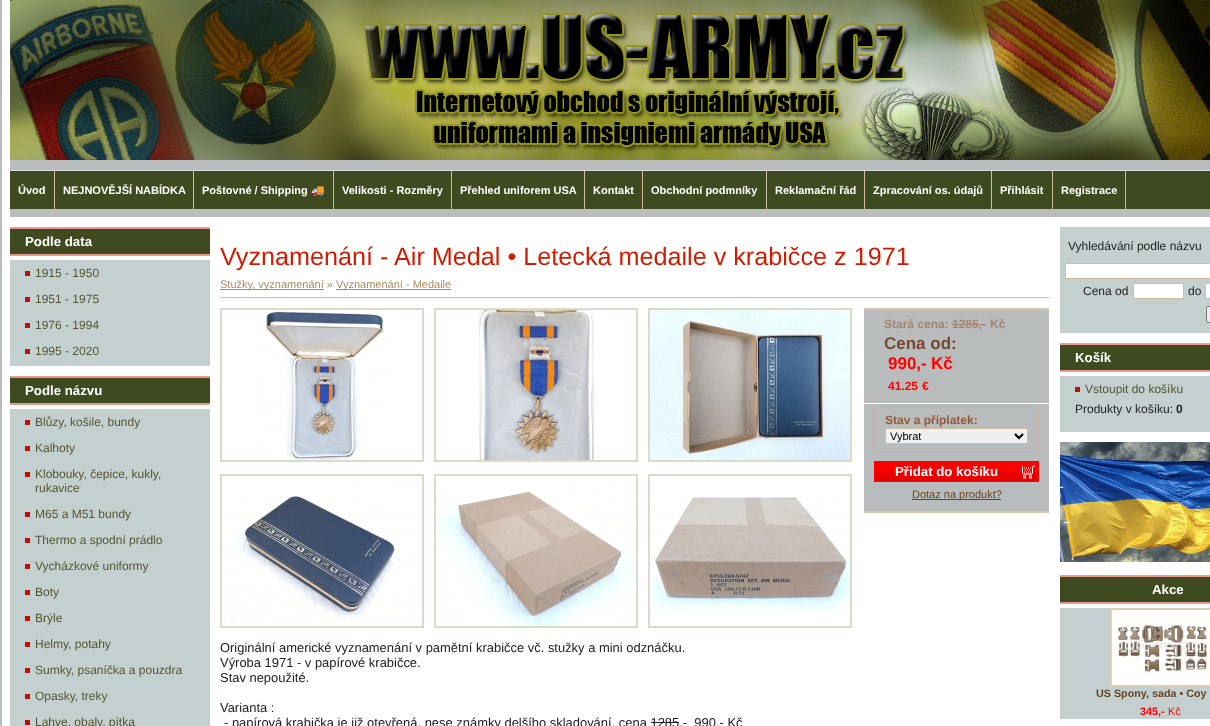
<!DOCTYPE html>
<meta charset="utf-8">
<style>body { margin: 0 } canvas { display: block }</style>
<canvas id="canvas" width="1210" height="726"></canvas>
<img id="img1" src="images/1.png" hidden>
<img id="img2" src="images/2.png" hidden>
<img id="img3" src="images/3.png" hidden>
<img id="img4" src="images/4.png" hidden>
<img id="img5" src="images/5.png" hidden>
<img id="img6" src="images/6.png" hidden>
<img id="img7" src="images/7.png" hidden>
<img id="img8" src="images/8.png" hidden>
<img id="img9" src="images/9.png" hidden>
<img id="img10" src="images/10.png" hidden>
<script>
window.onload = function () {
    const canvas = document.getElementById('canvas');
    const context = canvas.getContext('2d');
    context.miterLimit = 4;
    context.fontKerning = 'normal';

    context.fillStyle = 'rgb(185, 188, 188)';
    context.fillRect(0, 0, 1210, 726);
    context.fillStyle = 'rgb(255, 255, 255)';
    context.fillRect(2, 0, 8, 726);
    context.drawImage(document.getElementById('img1'), 10, 0, 1200, 160);
    context.fillStyle = 'rgb(62, 75, 32)';
    context.fillRect(10, 171, 1200, 38);
    context.fillStyle = 'rgb(221, 221, 221)';
    context.fillRect(10, 170, 1200, 1);
    context.fillStyle = 'rgb(209, 189, 157)';
    context.fillRect(54, 171, 1, 38);
    context.fillRect(193, 171, 1, 38);
    context.fillRect(333, 171, 1, 38);
    context.fillRect(451, 171, 1, 38);
    context.fillRect(584, 171, 1, 38);
    context.fillRect(642, 171, 1, 38);
    context.fillRect(766, 171, 1, 38);
    context.fillRect(864, 171, 1, 38);
    context.fillRect(991, 171, 1, 38);
    context.fillRect(1052, 171, 1, 38);
    context.fillRect(1125, 171, 1, 38);
    context.fillStyle = 'rgb(255, 255, 255)';
    context.fillRect(10, 217, 1200, 509);
    context.fillStyle = 'rgb(62, 75, 32)';
    context.fillRect(10, 229, 200, 25);
    context.fillStyle = 'rgb(234, 154, 142)';
    context.fillRect(10, 227, 200, 2);
    context.fillRect(10, 254, 200, 2);
    context.fillStyle = 'rgb(195, 208, 207)';
    context.fillRect(10, 260, 200, 106);
    context.fillStyle = 'rgb(186, 16, 7)';
    context.fillRect(25, 271, 5, 5);
    context.fillRect(25, 297, 5, 5);
    context.fillRect(25, 323, 5, 5);
    context.fillRect(25, 349, 5, 5);
    context.fillStyle = 'rgb(62, 75, 32)';
    context.fillRect(10, 378, 200, 25);
    context.fillStyle = 'rgb(234, 154, 142)';
    context.fillRect(10, 376, 200, 2);
    context.fillRect(10, 403, 200, 2);
    context.fillStyle = 'rgb(195, 208, 207)';
    context.fillRect(10, 409, 200, 317);
    context.fillStyle = 'rgb(186, 16, 7)';
    context.fillRect(25, 420, 5, 5);
    context.fillRect(25, 446, 5, 5);
    context.fillRect(25, 472, 5, 5);
    context.fillRect(25, 512, 5, 5);
    context.fillRect(25, 538, 5, 5);
    context.fillRect(25, 564, 5, 5);
    context.fillRect(25, 590, 5, 5);
    context.fillRect(25, 616, 5, 5);
    context.fillRect(25, 642, 5, 5);
    context.fillRect(25, 668, 5, 5);
    context.fillRect(25, 694, 5, 5);
    context.fillRect(25, 720, 5, 5);
    context.fillStyle = 'rgb(209, 189, 157)';
    context.fillRect(220, 297, 829, 1);
    context.fillStyle = 'rgb(167, 139, 101)';
    context.fillRect(220, 289, 104, 1);
    context.fillRect(336, 289, 115, 1);
    context.strokeStyle = 'rgb(220, 218, 201)';
    context.lineWidth = 2;
    context.strokeRect(221, 309, 202, 152);
    context.drawImage(document.getElementById('img2'), 259, 310, 135, 150);
    context.strokeRect(435, 309, 202, 152);
    context.drawImage(document.getElementById('img3'), 479, 310, 115, 150);
    context.strokeRect(649, 309, 202, 152);
    context.drawImage(document.getElementById('img4'), 650, 310, 200, 150);
    context.strokeRect(221, 475, 202, 152);
    context.drawImage(document.getElementById('img5'), 222, 476, 198, 150);
    context.strokeRect(435, 475, 202, 152);
    context.drawImage(document.getElementById('img6'), 436, 476, 200, 150);
    context.strokeRect(649, 475, 202, 152);
    context.drawImage(document.getElementById('img7'), 650, 497, 200, 117);
    context.fillStyle = 'rgb(185, 188, 188)';
    context.fillRect(864, 310, 185, 201);
    context.fillStyle = 'rgb(220, 199, 167)';
    context.fillRect(864, 308, 185, 2);
    context.fillRect(864, 511, 185, 2);
    context.fillStyle = 'rgb(255, 255, 255)';
    context.fillRect(864, 403, 185, 1);
    context.fillStyle = 'rgb(163, 133, 116)';
    context.fillRect(952, 324, 34, 1);
    context.strokeStyle = 'rgb(203, 178, 164)';
    context.lineWidth = 1;
    context.strokeRect(874.5, 407.5, 164, 48);
    context.fillStyle = 'rgb(239, 239, 239)';
    context.beginPath();
    context.rect(885.5, 428.5, 142, 15);
    context.fill();
    context.strokeStyle = 'rgb(209, 189, 157)';
    context.stroke();
    context.beginPath();
    context.moveTo(1015, 434);
    context.lineTo(1019, 438);
    context.lineTo(1023, 434);
    context.strokeStyle = 'rgb(0, 0, 0)';
    context.lineWidth = 2;
    context.stroke();
    context.drawImage(document.getElementById('img8'), 875, 462, 163, 19);
    context.strokeStyle = 'rgb(255, 0, 0)';
    context.lineWidth = 1;
    context.strokeRect(874.5, 461.5, 164, 20);
    context.fillStyle = 'rgb(102, 68, 34)';
    context.fillRect(912, 499, 89, 1);
    context.fillStyle = 'rgb(34, 34, 34)';
    context.fillRect(651, 722, 28, 1);
    context.fillStyle = 'rgb(195, 208, 207)';
    context.fillRect(1060, 227, 150, 106);
    context.fillStyle = 'rgb(255, 255, 255)';
    context.beginPath();
    context.rect(1065.5, 263.5, 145, 15);
    context.fill();
    context.strokeStyle = 'rgb(209, 189, 157)';
    context.stroke();
    context.beginPath();
    context.rect(1133.5, 283.5, 50, 15);
    context.fill();
    context.stroke();
    context.beginPath();
    context.rect(1205.5, 283.5, 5, 15);
    context.fill();
    context.stroke();
    context.fillStyle = 'rgb(239, 239, 239)';
    context.beginPath();
    context.roundRect(1206.5, 306.5, 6, 16, 1.5);
    context.fill();
    context.strokeStyle = 'rgb(118, 118, 118)';
    context.stroke();
    context.fillStyle = 'rgb(62, 75, 32)';
    context.fillRect(1060, 345, 150, 25);
    context.fillStyle = 'rgb(234, 154, 142)';
    context.fillRect(1060, 343, 150, 2);
    context.fillRect(1060, 370, 150, 2);
    context.fillStyle = 'rgb(195, 208, 207)';
    context.fillRect(1060, 376, 150, 56);
    context.fillStyle = 'rgb(186, 16, 7)';
    context.fillRect(1075, 387, 5, 5);
    context.drawImage(document.getElementById('img9'), 1060, 442, 150, 120);
    context.fillStyle = 'rgb(62, 75, 32)';
    context.fillRect(1060, 577, 150, 25);
    context.fillStyle = 'rgb(234, 154, 142)';
    context.fillRect(1060, 575, 150, 2);
    context.fillRect(1060, 602, 150, 2);
    context.fillStyle = 'rgb(195, 208, 207)';
    context.fillRect(1060, 608, 150, 111);
    context.strokeStyle = 'rgb(221, 206, 183)';
    context.lineWidth = 2;
    context.strokeRect(1111, 609, 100, 77);
    context.drawImage(document.getElementById('img10'), 1112, 610, 98, 75);
    context.font = 'bold 11px Liberation Sans';
    context.fillStyle = 'rgb(255, 255, 255)';
    context.fillText('Úvod', 18, 194);
    context.fillText('NEJNOVĚJŠÍ NABÍDKA', 63, 194);
    context.fillText('Poštovné / Shipping', 202, 194);
    context.font = 'bold 11px Noto Color Emoji';
    context.fillText('🚚', 311, 194);
    context.font = 'bold 11px Liberation Sans';
    context.fillText('Velikosti - Rozměry', 342, 194);
    context.fillText('Přehled uniforem USA', 460, 194);
    context.fillText('Kontakt', 593, 194);
    context.fillText('Obchodní podmníky', 651, 194);
    context.fillText('Reklamační řád', 775, 194);
    context.fillText('Zpracování os. údajů', 873, 194);
    context.fillText('Přihlásit', 1000, 194);
    context.fillText('Registrace', 1061, 194);
    context.font = 'bold 13.25px Liberation Sans';
    context.fillText('Podle data', 25, 246);
    context.font = '12px Liberation Sans';
    context.fillStyle = 'rgb(85, 85, 51)';
    context.fillText('1915 - 1950', 35, 277);
    context.fillText('1951 - 1975', 35, 303);
    context.fillText('1976 - 1994', 35, 329);
    context.fillText('1995 - 2020', 35, 355);
    context.font = 'bold 13.25px Liberation Sans';
    context.fillStyle = 'rgb(255, 255, 255)';
    context.fillText('Podle názvu', 25, 395);
    context.font = '12px Liberation Sans';
    context.fillStyle = 'rgb(85, 85, 51)';
    context.fillText('Blůzy, košile, bundy', 35, 426);
    context.fillText('Kalhoty', 35, 452);
    context.fillText('Klobouky, čepice, kukly,', 35, 478);
    context.fillText('rukavice', 35, 492);
    context.fillText('M65 a M51 bundy', 35, 518);
    context.fillText('Thermo a spodní prádlo', 35, 544);
    context.fillText('Vycházkové uniformy', 35, 570);
    context.fillText('Boty', 35, 596);
    context.fillText('Brýle', 35, 622);
    context.fillText('Helmy, potahy', 35, 648);
    context.fillText('Sumky, psaníčka a pouzdra', 35, 674);
    context.fillText('Opasky, treky', 35, 700);
    context.fillText('Lahve, obaly, pítka', 35, 726);
    context.font = '25.2px Liberation Sans';
    context.fillStyle = 'rgb(208, 28, 2)';
    context.fillText('Vyznamenání - Air Medal • Letecká medaile v krabičce z 1971', 220, 265);
    context.font = '11px Liberation Sans';
    context.fillStyle = 'rgb(167, 139, 101)';
    context.fillText('Stužky, vyznamenání »', 220, 288);
    context.fillText('Vyznamenání - Medaile', 336, 288);
    context.font = 'bold 12px Liberation Sans';
    context.fillStyle = 'rgb(163, 133, 116)';
    context.fillText('Stará cena:', 884, 328);
    context.fillText('1285,-', 952, 328);
    context.fillText('Kč', 990, 328);
    context.font = 'bold 17px Liberation Sans';
    context.fillStyle = 'rgb(118, 72, 48)';
    context.fillText('Cena od:', 884, 349);
    context.fillStyle = 'rgb(255, 0, 0)';
    context.fillText('990,-', 888, 369);
    context.fillText('Kč', 931, 369);
    context.font = 'bold 12px Liberation Sans';
    context.fillText('41.25', 888, 390);
    context.fillText('€', 922, 390);
    context.fillStyle = 'rgb(145, 90, 60)';
    context.fillText('Stav a příplatek:', 885, 424);
    context.font = '11px Liberation Sans';
    context.fillStyle = 'rgb(0, 0, 0)';
    context.fillText('Vybrat', 890, 440);
    context.font = 'bold 13.25px Liberation Sans';
    context.fillStyle = 'rgb(255, 255, 255)';
    context.fillText('Přidat do košíku', 895, 476);
    context.font = '11px Liberation Sans';
    context.fillStyle = 'rgb(102, 68, 34)';
    context.fillText('Dotaz na produkt?', 912, 498);
    context.font = '12.95px Liberation Sans';
    context.fillStyle = 'rgb(34, 34, 34)';
    context.fillText('Originální americké vyznamenání v pamětní krabičce vč. stužky a mini odznáčku.', 220, 652);
    context.fillText('Výroba 1971 - v papírové krabičce.', 220, 667);
    context.fillText('Stav nepoužité.', 220, 682);
    context.fillText('Varianta :', 220, 712);
    context.fillText('- papírová krabička je již otevřená, nese známky delšího skladování, cena 1285,-  990,- Kč', 224, 727);
    context.font = '12px Liberation Sans';
    context.fillText('Vyhledávání podle názvu', 1068, 250);
    context.fillText('Cena od', 1083, 295);
    context.fillText('do', 1188, 295);
    context.font = 'bold 13.25px Liberation Sans';
    context.fillStyle = 'rgb(255, 255, 255)';
    context.fillText('Košík', 1075, 362);
    context.font = '12px Liberation Sans';
    context.fillStyle = 'rgb(85, 85, 51)';
    context.fillText('Vstoupit do košíku', 1085, 393);
    context.fillStyle = 'rgb(34, 34, 34)';
    context.fillText('Produkty v košíku:', 1075, 413);
    context.font = 'bold 12px Liberation Sans';
    context.fillText('0', 1176, 413);
    context.font = 'bold 13.25px Liberation Sans';
    context.fillStyle = 'rgb(255, 255, 255)';
    context.fillText('Akce', 1152, 594);
    context.font = 'bold 10.75px Liberation Sans';
    context.fillStyle = 'rgb(102, 68, 34)';
    context.fillText('US Spony, sada • Coy', 1096, 697);
    context.fillStyle = 'rgb(255, 0, 0)';
    context.fillText('345,-', 1140, 715);
    context.font = '10.75px Liberation Sans';
    context.fillText('Kč', 1168, 715);
};
</script>
